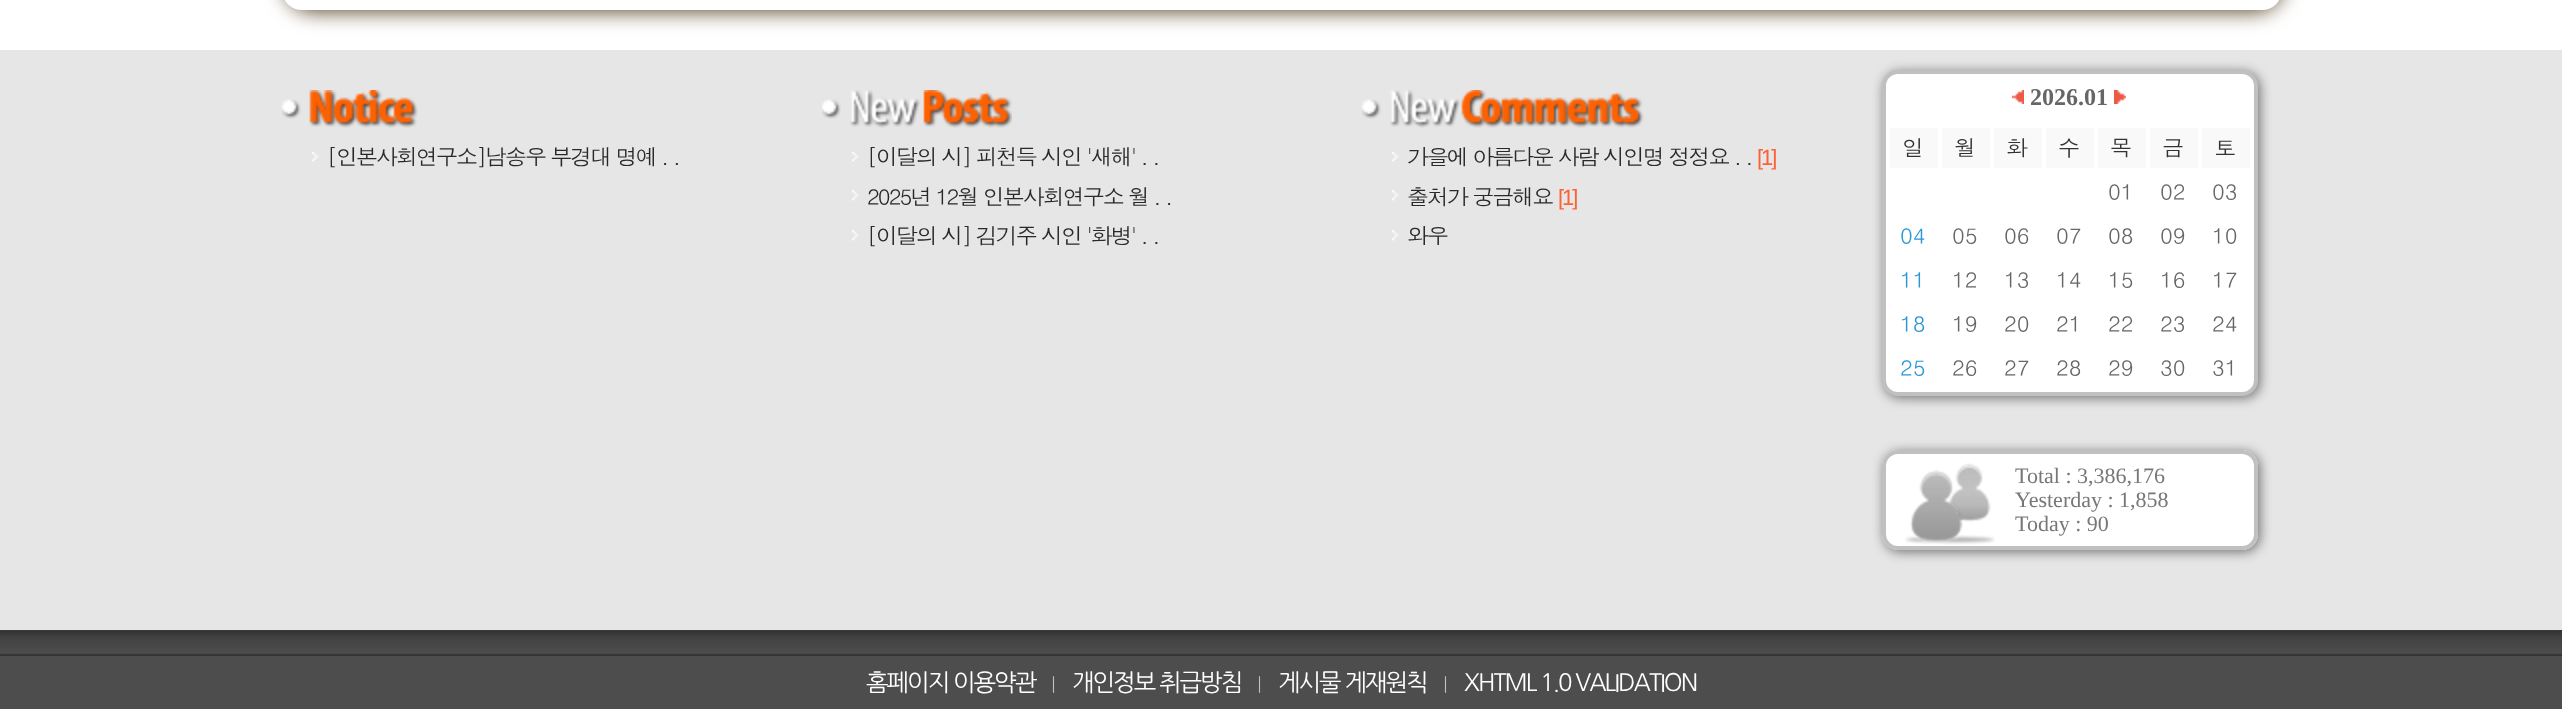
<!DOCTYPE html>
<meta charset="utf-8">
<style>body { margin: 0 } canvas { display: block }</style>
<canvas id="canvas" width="2562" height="709"></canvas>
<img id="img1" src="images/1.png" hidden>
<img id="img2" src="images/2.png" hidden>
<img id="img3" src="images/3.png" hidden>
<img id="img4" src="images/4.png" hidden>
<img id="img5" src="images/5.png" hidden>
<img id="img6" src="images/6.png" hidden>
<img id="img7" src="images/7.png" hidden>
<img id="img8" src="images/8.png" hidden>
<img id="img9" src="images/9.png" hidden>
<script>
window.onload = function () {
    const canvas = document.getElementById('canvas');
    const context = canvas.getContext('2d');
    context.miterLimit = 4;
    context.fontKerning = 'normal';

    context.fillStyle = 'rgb(255, 255, 255)';
    context.fillRect(0, 0, 2562, 709);
    context.fillStyle = 'rgb(94, 74, 44)';
    context.filter = 'blur(10px)';
    context.beginPath();
    context.roundRect(284, -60, 2000, 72, 30);
    context.fill();
    context.filter = 'none';
    context.fillStyle = 'rgb(255, 255, 255)';
    context.beginPath();
    context.roundRect(282, -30, 2000, 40, 30);
    context.fill();
    context.fillStyle = 'rgb(230, 230, 230)';
    context.fillRect(0, 50, 2562, 580);
    context.drawImage(document.getElementById('img1'), 282, 90, 136, 38);
    context.drawImage(document.getElementById('img2'), 312, 152, 7, 10);
    context.drawImage(document.getElementById('img3'), 822, 90, 190, 38);
    context.drawImage(document.getElementById('img2'), 852, 152, 7, 10);
    context.drawImage(document.getElementById('img4'), 852, 190, 7, 11);
    context.drawImage(document.getElementById('img4'), 852, 230, 7, 11);
    context.drawImage(document.getElementById('img5'), 1362, 90, 282, 38);
    context.drawImage(document.getElementById('img2'), 1392, 152, 7, 10);
    context.drawImage(document.getElementById('img4'), 1392, 190, 7, 11);
    context.drawImage(document.getElementById('img4'), 1392, 230, 7, 11);
    context.fillStyle = 'rgba(0, 0, 0, 0.5)';
    context.filter = 'blur(6px)';
    context.beginPath();
    context.roundRect(1884, 72, 376, 326, 16);
    context.fill();
    context.filter = 'none';
    context.fillStyle = 'rgb(255, 255, 255)';
    context.beginPath();
    context.roundRect(1884, 72, 372, 322, 14);
    context.fill();
    context.strokeStyle = 'rgb(192, 192, 192)';
    context.lineWidth = 4;
    context.stroke();
    context.drawImage(document.getElementById('img6'), 2012, 90, 12, 14);
    context.drawImage(document.getElementById('img7'), 2114, 90, 12, 14);
    context.fillStyle = 'rgb(249, 249, 249)';
    context.fillRect(1890, 128, 48, 40);
    context.fillRect(1942, 128, 48, 40);
    context.fillRect(1994, 128, 48, 40);
    context.fillRect(2046, 128, 48, 40);
    context.fillRect(2098, 128, 48, 40);
    context.fillRect(2150, 128, 48, 40);
    context.fillRect(2202, 128, 48, 40);
    context.fillStyle = 'rgba(0, 0, 0, 0.5)';
    context.filter = 'blur(6px)';
    context.beginPath();
    context.roundRect(1884, 452, 376, 100, 16);
    context.fill();
    context.filter = 'none';
    context.fillStyle = 'rgb(255, 255, 255)';
    context.beginPath();
    context.roundRect(1882, 450, 376, 100, 16);
    context.fill();
    context.drawImage(document.getElementById('img8'), 1905, 463, 90, 82);
    context.beginPath();
    context.roundRect(1884, 452, 372, 96, 14);
    context.stroke();
    context.fillStyle = 'rgb(77, 77, 77)';
    context.fillRect(0, 630, 2562, 79);
    context.drawImage(document.getElementById('img9'), 0, 630, 2562, 26);
    context.letterSpacing = '-2px';
    context.font = '22px Dotum';
    context.fillStyle = 'rgb(41, 41, 41)';
    context.fillText('[인본사회연구소]남송우 부경대 명예 . .', 327, 165);
    context.fillText('[이달의 시] 피천득 시인 \'새해\' . .', 867, 165);
    context.fillText('2025년 12월 인본사회연구소 월 . .', 867, 205);
    context.fillText('[이달의 시] 김기주 시인 \'화병\' . .', 867, 244);
    context.fillText('가을에 아름다운 사람 시인명 정정요 . .', 1407, 165);
    context.font = '22px Liberation Sans';
    context.fillStyle = 'rgb(252, 97, 56)';
    context.fillText('[1]', 1757, 165);
    context.font = '22px Dotum';
    context.fillStyle = 'rgb(41, 41, 41)';
    context.fillText('출처가 궁금해요', 1407, 205);
    context.font = '22px Liberation Sans';
    context.fillStyle = 'rgb(252, 97, 56)';
    context.fillText('[1]', 1558, 205);
    context.font = '22px Dotum';
    context.fillStyle = 'rgb(41, 41, 41)';
    context.fillText('와우', 1407, 244);
    context.letterSpacing = '0px';
    context.font = 'bold 24px Liberation Serif';
    context.fillStyle = 'rgb(102, 102, 102)';
    context.fillText('2026.01', 2030, 105);
    context.font = '22px Dotum';
    context.fillStyle = 'rgb(51, 51, 51)';
    context.fillText('일', 1902, 156);
    context.fillText('월', 1954, 156);
    context.fillText('화', 2006, 156);
    context.fillText('수', 2058, 156);
    context.fillText('목', 2110, 156);
    context.fillText('금', 2162, 156);
    context.fillText('토', 2214, 156);
    context.fillStyle = 'rgb(102, 102, 102)';
    context.fillText('01', 2108, 200);
    context.fillText('02', 2160, 200);
    context.fillText('03', 2212, 200);
    context.fillStyle = 'rgb(43, 151, 215)';
    context.fillText('04', 1900, 244);
    context.fillStyle = 'rgb(102, 102, 102)';
    context.fillText('05', 1952, 244);
    context.fillText('06', 2004, 244);
    context.fillText('07', 2056, 244);
    context.fillText('08', 2108, 244);
    context.fillText('09', 2160, 244);
    context.fillText('10', 2212, 244);
    context.fillStyle = 'rgb(43, 151, 215)';
    context.fillText('11', 1900, 288);
    context.fillStyle = 'rgb(102, 102, 102)';
    context.fillText('12', 1952, 288);
    context.fillText('13', 2004, 288);
    context.fillText('14', 2056, 288);
    context.fillText('15', 2108, 288);
    context.fillText('16', 2160, 288);
    context.fillText('17', 2212, 288);
    context.fillStyle = 'rgb(43, 151, 215)';
    context.fillText('18', 1900, 332);
    context.fillStyle = 'rgb(102, 102, 102)';
    context.fillText('19', 1952, 332);
    context.fillText('20', 2004, 332);
    context.fillText('21', 2056, 332);
    context.fillText('22', 2108, 332);
    context.fillText('23', 2160, 332);
    context.fillText('24', 2212, 332);
    context.fillStyle = 'rgb(43, 151, 215)';
    context.fillText('25', 1900, 376);
    context.fillStyle = 'rgb(102, 102, 102)';
    context.fillText('26', 1952, 376);
    context.fillText('27', 2004, 376);
    context.fillText('28', 2056, 376);
    context.fillText('29', 2108, 376);
    context.fillText('30', 2160, 376);
    context.fillText('31', 2212, 376);
    context.font = '22px Liberation Serif';
    context.fillStyle = 'rgb(119, 119, 119)';
    context.fillText('Total : 3,386,176', 2015, 483);
    context.fillText('Yesterday : 1,858', 2015, 507);
    context.fillText('Today : 90', 2015, 531);
    context.letterSpacing = '-2px';
    context.font = '24px NanumGothic';
    context.fillStyle = 'rgb(255, 255, 255)';
    context.fillText('홈페이지 이용약관', 866, 691);
    context.letterSpacing = '0px';
    context.font = '18px Dotum';
    context.fillStyle = 'rgb(192, 192, 192)';
    context.fillText('|', 1049, 691);
    context.letterSpacing = '-2px';
    context.font = '24px NanumGothic';
    context.fillStyle = 'rgb(255, 255, 255)';
    context.fillText('개인정보 취급방침', 1072, 691);
    context.letterSpacing = '0px';
    context.font = '18px Dotum';
    context.fillStyle = 'rgb(192, 192, 192)';
    context.fillText('|', 1255, 691);
    context.letterSpacing = '-2px';
    context.font = '24px NanumGothic';
    context.fillStyle = 'rgb(255, 255, 255)';
    context.fillText('게시물 게재원칙', 1278, 691);
    context.letterSpacing = '0px';
    context.font = '18px Dotum';
    context.fillStyle = 'rgb(192, 192, 192)';
    context.fillText('|', 1441, 691);
    context.letterSpacing = '-2px';
    context.font = '24px NanumGothic';
    context.fillStyle = 'rgb(255, 255, 255)';
    context.fillText('XHTML 1.0 VALIDATION', 1464, 691);
};
</script>
